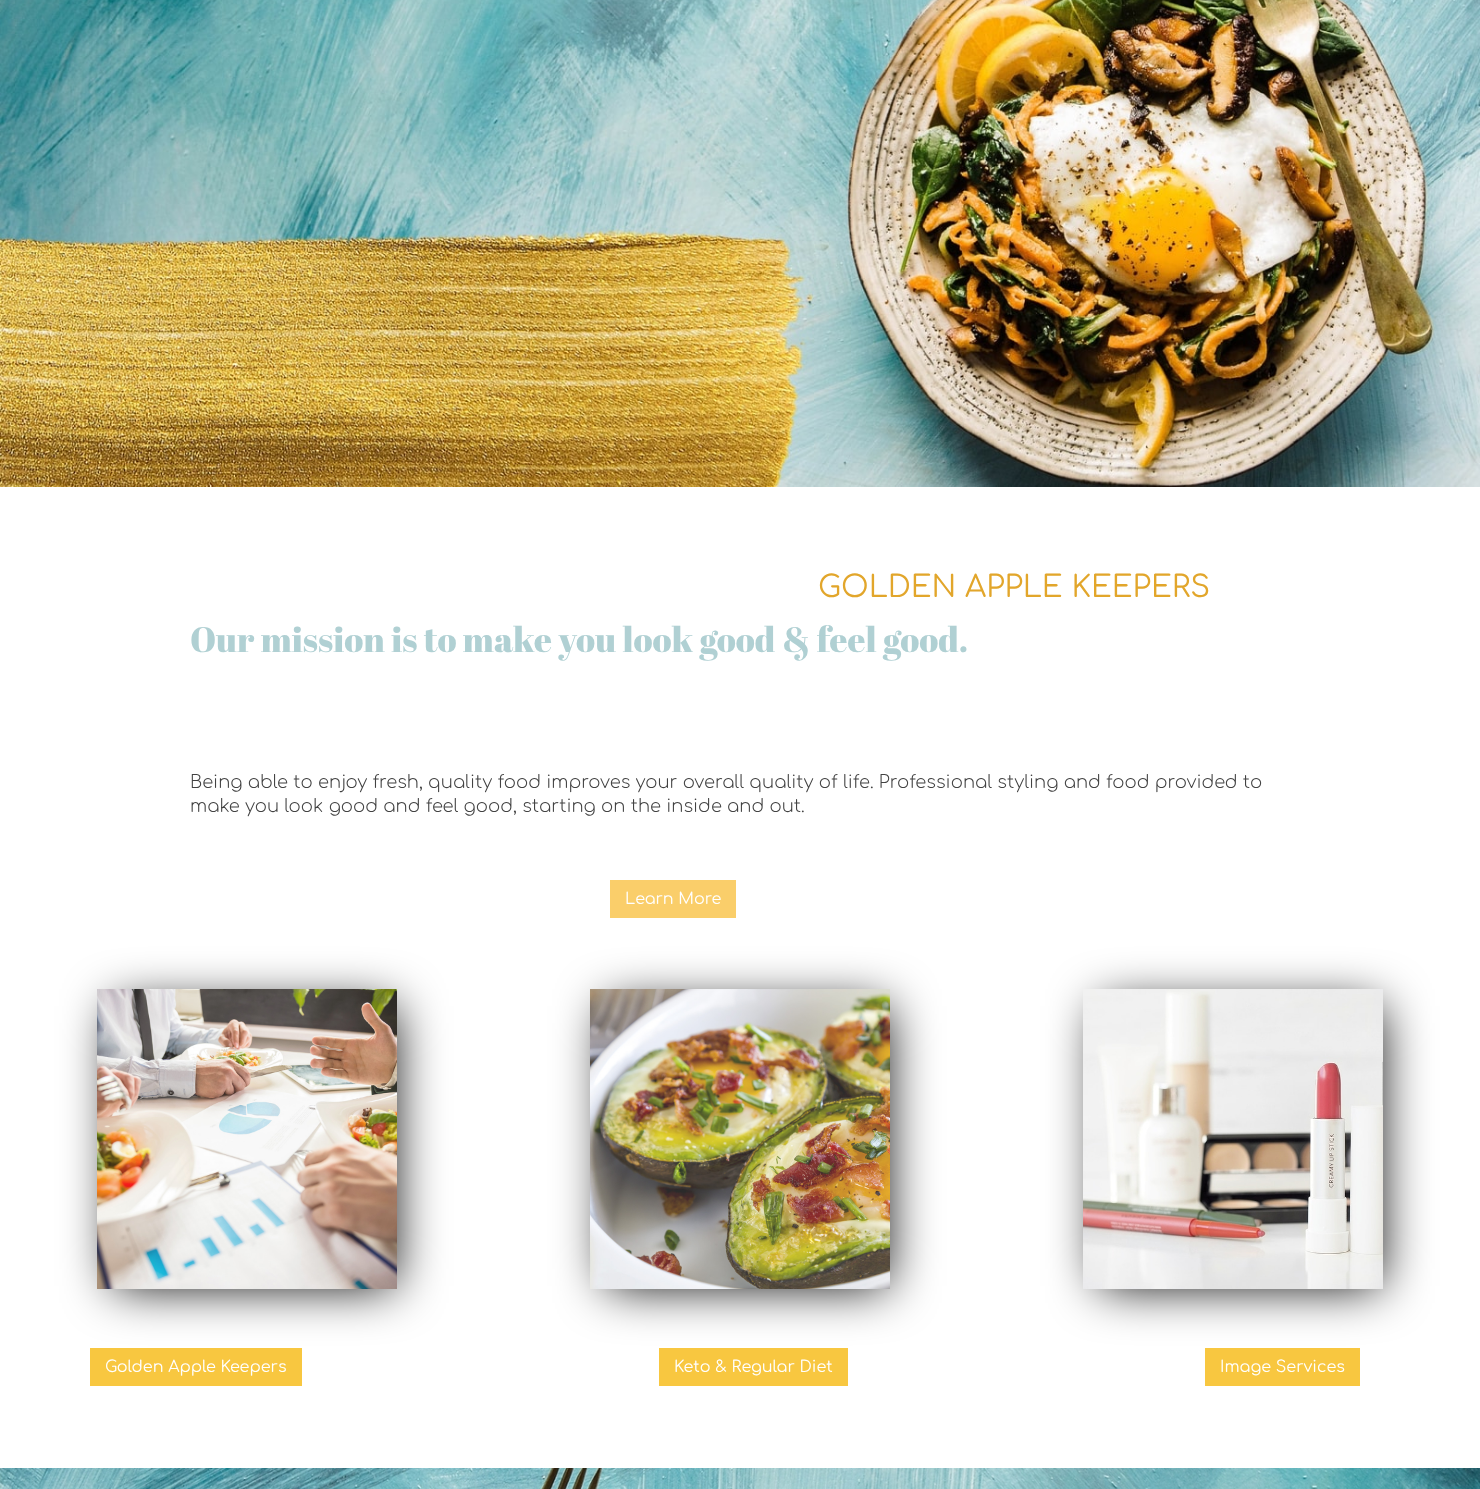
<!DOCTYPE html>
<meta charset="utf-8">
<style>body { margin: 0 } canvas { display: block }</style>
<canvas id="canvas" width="1480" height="1489"></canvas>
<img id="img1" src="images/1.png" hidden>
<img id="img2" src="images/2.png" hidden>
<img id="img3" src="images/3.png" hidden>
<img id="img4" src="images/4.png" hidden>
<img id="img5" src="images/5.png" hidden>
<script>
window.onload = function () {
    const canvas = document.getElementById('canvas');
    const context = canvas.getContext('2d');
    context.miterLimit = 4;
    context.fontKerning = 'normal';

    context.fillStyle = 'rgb(255, 255, 255)';
    context.fillRect(0, 0, 1480, 1489);
    context.drawImage(document.getElementById('img1'), 0, 0, 1480, 487);
    context.fillStyle = 'rgb(250, 206, 106)';
    context.fillRect(610, 880, 126, 38);
    context.fillStyle = 'rgb(0, 0, 0)';
    context.filter = 'blur(25px)';
    context.beginPath();
    context.rect(114, 1006, 280, 280);
    context.fill();
    context.filter = 'none';
    context.drawImage(document.getElementById('img2'), 97, 989, 300, 300);
    context.filter = 'blur(25px)';
    context.beginPath();
    context.rect(607, 1006, 280, 280);
    context.fill();
    context.filter = 'none';
    context.drawImage(document.getElementById('img3'), 590, 989, 300, 300);
    context.filter = 'blur(25px)';
    context.beginPath();
    context.rect(1100, 1006, 280, 280);
    context.fill();
    context.filter = 'none';
    context.drawImage(document.getElementById('img4'), 1083, 989, 300, 300);
    context.fillStyle = 'rgb(248, 199, 64)';
    context.fillRect(90, 1348, 212, 38);
    context.fillRect(659, 1348, 189, 38);
    context.fillRect(1205, 1348, 155, 38);
    context.drawImage(document.getElementById('img5'), 0, 1468, 1480, 21);
    context.font = '30px Comfortaa';
    context.fillStyle = 'rgb(226, 166, 43)';
    context.fillText('GOLDEN APPLE KEEPERS', 818, 597);
    context.font = '35px Abril Fatface';
    context.fillStyle = 'rgb(176, 208, 211)';
    context.fillText('Our mission is to make you look good & feel good.', 190, 652);
    context.font = '300 18px Comfortaa';
    context.fillStyle = 'rgb(66, 66, 66)';
    context.fillText('Being able to enjoy fresh, quality food improves your overall quality of life. Professional styling and food provided to', 190, 788);
    context.fillText('make you look good and feel good, starting on the inside and out.', 190, 812);
    context.font = '16px Comfortaa';
    context.fillStyle = 'rgb(255, 255, 255)';
    context.fillText('Learn More', 625, 904);
    context.fillText('Golden Apple Keepers', 105, 1372);
    context.fillText('Keto & Regular Diet', 674, 1372);
    context.fillText('Image Services', 1220, 1372);
};
</script>
